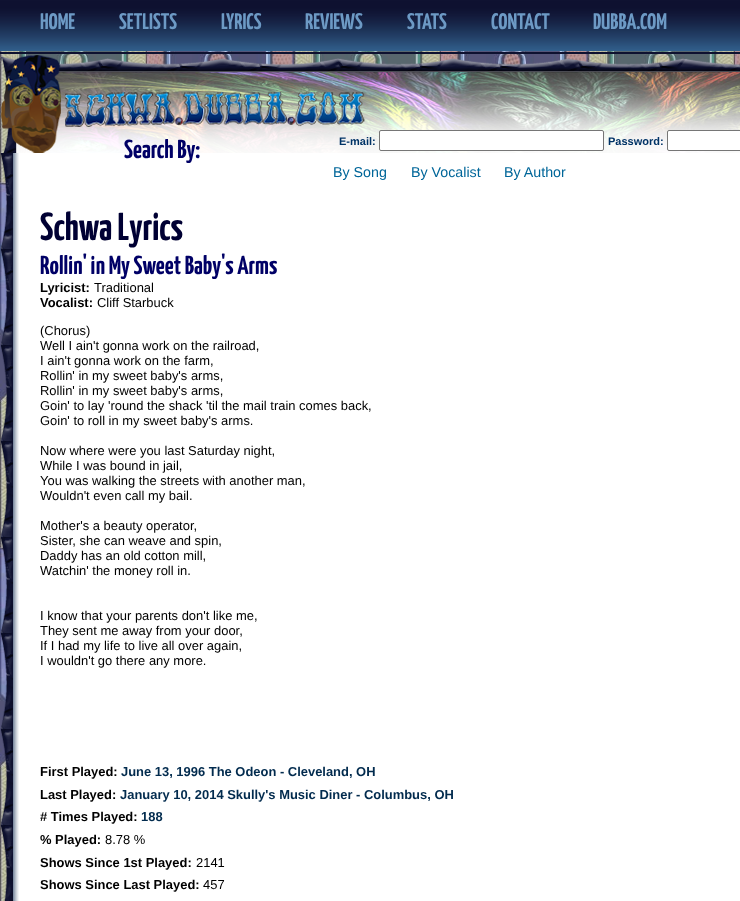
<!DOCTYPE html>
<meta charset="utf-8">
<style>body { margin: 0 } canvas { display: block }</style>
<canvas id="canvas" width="740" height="901"></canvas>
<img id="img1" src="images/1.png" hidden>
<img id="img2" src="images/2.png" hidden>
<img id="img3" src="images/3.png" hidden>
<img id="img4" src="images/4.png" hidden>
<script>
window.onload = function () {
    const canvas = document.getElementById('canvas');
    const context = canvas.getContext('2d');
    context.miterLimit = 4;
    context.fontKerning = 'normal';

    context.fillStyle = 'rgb(255, 255, 255)';
    context.fillRect(0, 0, 740, 901);
    context.drawImage(document.getElementById('img1'), 0, 51, 740, 850);
    context.drawImage(document.getElementById('img2'), 0, 0, 740, 54);
    context.drawImage(document.getElementById('img3'), 1, 55, 739, 98);
    context.beginPath();
    context.roundRect(379.5, 130.5, 224, 20, 1.5);
    context.fill();
    context.strokeStyle = 'rgb(118, 118, 118)';
    context.stroke();
    context.beginPath();
    context.roundRect(667.5, 130.5, 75, 20, 1.5);
    context.fill();
    context.stroke();
    context.drawImage(document.getElementById('img4'), 0, 153, 740, 748);
    context.font = 'bold 22.5px Yanone Kaffeesatz';
    context.fillStyle = 'rgb(109, 154, 197)';
    context.fillText('HOME', 40, 29);
    context.fillText('SETLISTS', 119, 29);
    context.fillText('LYRICS', 221, 29);
    context.fillText('REVIEWS', 305, 29);
    context.fillText('STATS', 407, 29);
    context.fillText('CONTACT', 491, 29);
    context.fillText('DUBBA.COM', 593, 29);
    context.font = 'bold 11px Liberation Sans';
    context.fillStyle = 'rgb(0, 51, 102)';
    context.fillText('E-mail:', 339, 145);
    context.fillText('Password:', 608, 145);
    context.font = 'bold 26px Yanone Kaffeesatz';
    context.fillStyle = 'rgb(0, 0, 102)';
    context.fillText('Search By:', 124, 158);
    context.font = '14.25px Liberation Sans';
    context.fillStyle = 'rgb(0, 102, 153)';
    context.fillText('By Song', 333, 177);
    context.fillText('By Vocalist', 411, 177);
    context.fillText('By Author', 504, 177);
    context.font = 'bold 39px Yanone Kaffeesatz';
    context.fillStyle = 'rgb(0, 0, 51)';
    context.fillText('Schwa Lyrics', 40, 240);
    context.font = 'bold 26px Yanone Kaffeesatz';
    context.fillStyle = 'rgb(0, 0, 102)';
    context.fillText('Rollin\' in My Sweet Baby\'s Arms', 40, 274);
    context.font = 'bold 12.95px Liberation Sans';
    context.fillStyle = 'rgb(0, 0, 0)';
    context.fillText('Lyricist:', 40, 292);
    context.font = '12.95px Liberation Sans';
    context.fillText('Traditional', 94, 292);
    context.font = 'bold 12.95px Liberation Sans';
    context.fillText('Vocalist:', 40, 307);
    context.font = '12.95px Liberation Sans';
    context.fillText('Cliff Starbuck', 97, 307);
    context.fillText('(Chorus)', 40, 335);
    context.fillText('Well I ain\'t gonna work on the railroad,', 40, 350);
    context.fillText('I ain\'t gonna work on the farm,', 40, 365);
    context.fillText('Rollin\' in my sweet baby\'s arms,', 40, 380);
    context.fillText('Rollin\' in my sweet baby\'s arms,', 40, 395);
    context.fillText('Goin\' to lay \'round the shack \'til the mail train comes back,', 40, 410);
    context.fillText('Goin\' to roll in my sweet baby\'s arms.', 40, 425);
    context.fillText('Now where were you last Saturday night,', 40, 455);
    context.fillText('While I was bound in jail,', 40, 470);
    context.fillText('You was walking the streets with another man,', 40, 485);
    context.fillText('Wouldn\'t even call my bail.', 40, 500);
    context.fillText('Mother\'s a beauty operator,', 40, 530);
    context.fillText('Sister, she can weave and spin,', 40, 545);
    context.fillText('Daddy has an old cotton mill,', 40, 560);
    context.fillText('Watchin\' the money roll in.', 40, 575);
    context.fillText('I know that your parents don\'t like me,', 40, 620);
    context.fillText('They sent me away from your door,', 40, 635);
    context.fillText('If I had my life to live all over again,', 40, 650);
    context.fillText('I wouldn\'t go there any more.', 40, 665);
    context.font = 'bold 12.95px Liberation Sans';
    context.fillText('First Played:', 40, 776);
    context.fillStyle = 'rgb(2, 43, 78)';
    context.fillText('June 13, 1996 The Odeon - Cleveland, OH', 121, 776);
    context.fillStyle = 'rgb(0, 0, 0)';
    context.fillText('Last Played:', 40, 799);
    context.fillStyle = 'rgb(2, 43, 78)';
    context.fillText('January 10, 2014 Skully\'s Music Diner - Columbus, OH', 120, 799);
    context.fillStyle = 'rgb(0, 0, 0)';
    context.fillText('# Times Played:', 40, 821);
    context.fillStyle = 'rgb(2, 43, 78)';
    context.fillText('188', 141, 821);
    context.fillStyle = 'rgb(0, 0, 0)';
    context.fillText('% Played:', 40, 844);
    context.font = '12.95px Liberation Sans';
    context.fillText('8.78 %', 105, 844);
    context.font = 'bold 12.95px Liberation Sans';
    context.fillText('Shows Since 1st Played:', 40, 867);
    context.font = '12.95px Liberation Sans';
    context.fillText('2141', 196, 867);
    context.font = 'bold 12.95px Liberation Sans';
    context.fillText('Shows Since Last Played:', 40, 889);
    context.font = '12.95px Liberation Sans';
    context.fillText('457', 203, 889);
};
</script>
